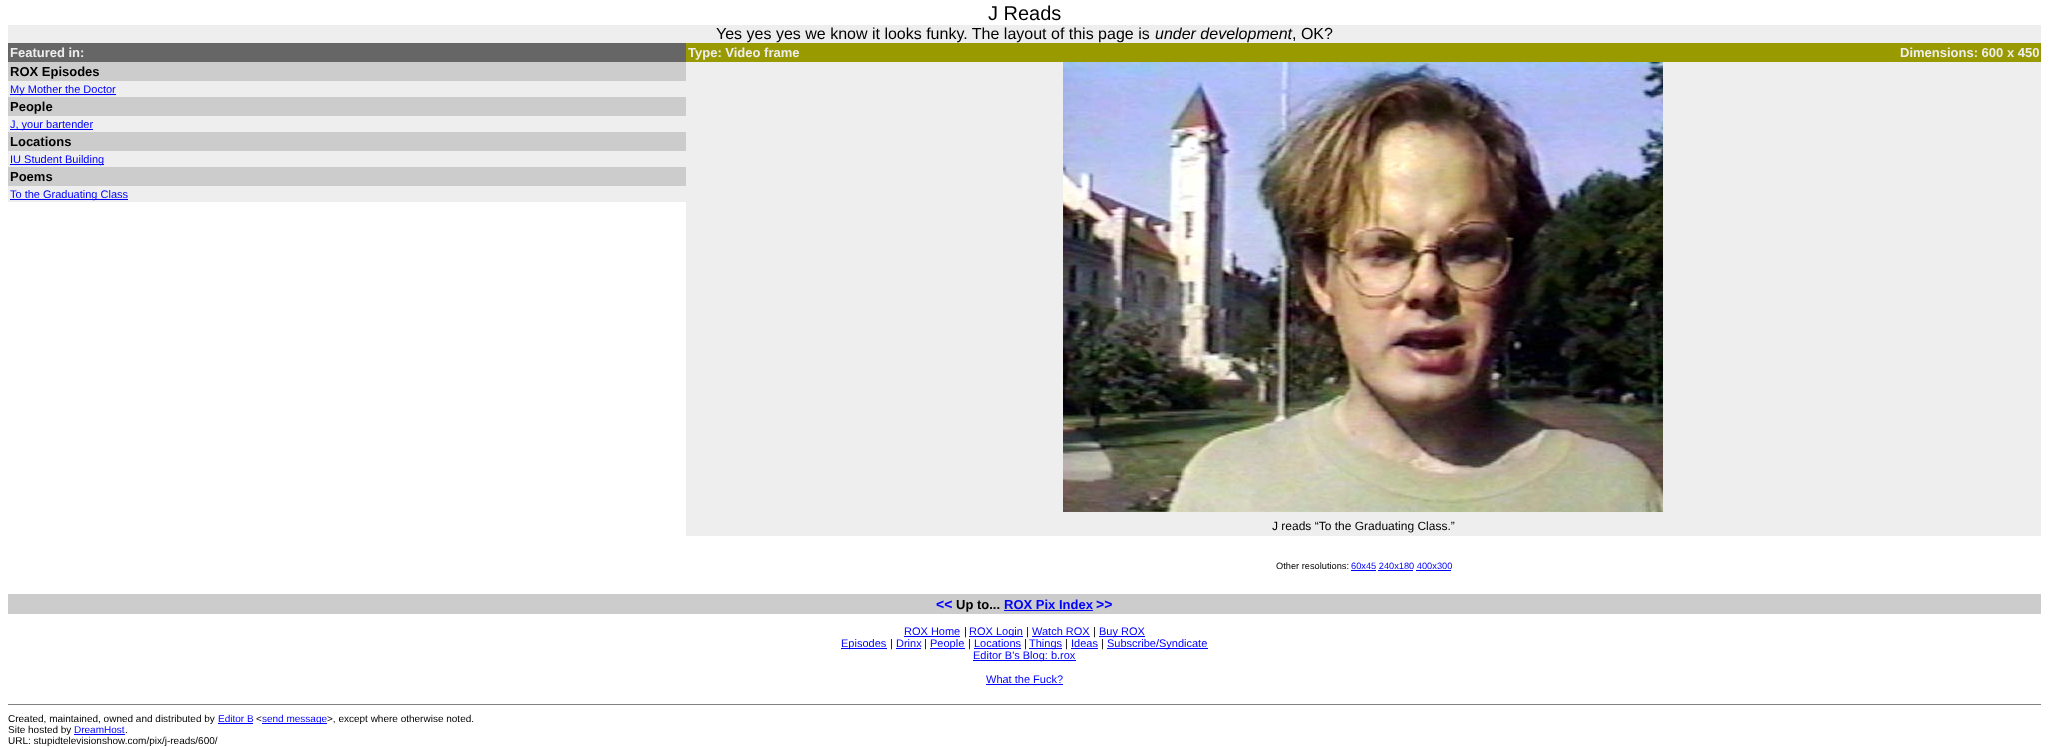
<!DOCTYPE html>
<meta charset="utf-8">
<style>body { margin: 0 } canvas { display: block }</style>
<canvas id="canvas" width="2049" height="747"></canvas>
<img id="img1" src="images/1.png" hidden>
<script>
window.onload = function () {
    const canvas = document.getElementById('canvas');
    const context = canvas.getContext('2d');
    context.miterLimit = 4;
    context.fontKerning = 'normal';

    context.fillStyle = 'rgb(255, 255, 255)';
    context.fillRect(0, 0, 2049, 747);
    context.fillStyle = 'rgb(238, 238, 238)';
    context.fillRect(8, 25, 2033, 18);
    context.fillStyle = 'rgb(102, 102, 102)';
    context.fillRect(8, 43, 678, 19);
    context.fillStyle = 'rgb(204, 204, 204)';
    context.fillRect(8, 62, 678, 19);
    context.fillStyle = 'rgb(238, 238, 238)';
    context.fillRect(8, 81, 678, 16);
    context.fillStyle = 'rgb(0, 0, 255)';
    context.fillRect(10, 94, 106, 1);
    context.fillStyle = 'rgb(204, 204, 204)';
    context.fillRect(8, 97, 678, 19);
    context.fillStyle = 'rgb(238, 238, 238)';
    context.fillRect(8, 116, 678, 16);
    context.fillStyle = 'rgb(0, 0, 255)';
    context.fillRect(10, 129, 83, 1);
    context.fillStyle = 'rgb(204, 204, 204)';
    context.fillRect(8, 132, 678, 19);
    context.fillStyle = 'rgb(238, 238, 238)';
    context.fillRect(8, 151, 678, 16);
    context.fillStyle = 'rgb(0, 0, 255)';
    context.fillRect(10, 164, 94, 1);
    context.fillStyle = 'rgb(204, 204, 204)';
    context.fillRect(8, 167, 678, 19);
    context.fillStyle = 'rgb(238, 238, 238)';
    context.fillRect(8, 186, 678, 16);
    context.fillStyle = 'rgb(0, 0, 255)';
    context.fillRect(10, 199, 118, 1);
    context.fillStyle = 'rgb(153, 153, 0)';
    context.fillRect(686, 43, 1355, 19);
    context.fillStyle = 'rgb(238, 238, 238)';
    context.fillRect(686, 62, 1355, 474);
    context.drawImage(document.getElementById('img1'), 1063, 62, 600, 450);
    context.fillStyle = 'rgb(0, 0, 255)';
    context.fillRect(1351, 570, 25, 1);
    context.fillRect(1378, 570, 35, 1);
    context.fillRect(1416, 570, 35, 1);
    context.fillStyle = 'rgb(204, 204, 204)';
    context.fillRect(8, 594, 2033, 20);
    context.fillStyle = 'rgb(0, 0, 255)';
    context.fillRect(1004, 610, 89, 1);
    context.fillRect(904, 636, 56, 1);
    context.fillRect(969, 636, 54, 1);
    context.fillRect(1032, 636, 58, 1);
    context.fillRect(1099, 636, 46, 1);
    context.fillRect(841, 648, 46, 1);
    context.fillRect(896, 648, 25, 1);
    context.fillRect(930, 648, 35, 1);
    context.fillRect(974, 648, 47, 1);
    context.fillRect(1029, 648, 33, 1);
    context.fillRect(1071, 648, 27, 1);
    context.fillRect(1107, 648, 101, 1);
    context.fillRect(973, 660, 103, 1);
    context.fillRect(986, 684, 77, 1);
    context.fillStyle = 'rgb(128, 128, 128)';
    context.fillRect(8, 704, 2033, 1);
    context.fillStyle = 'rgb(0, 0, 255)';
    context.fillRect(218, 723, 35, 1);
    context.fillRect(262, 723, 65, 1);
    context.fillRect(74, 734, 51, 1);
    context.font = '20px Liberation Sans';
    context.fillStyle = 'rgb(0, 0, 0)';
    context.fillText('J Reads', 988, 20);
    context.font = '16px Liberation Sans';
    context.fillText('Yes yes yes we know it looks funky. The layout of this page is', 716, 39);
    context.font = 'italic 16px Liberation Sans';
    context.fillText('under development', 1155, 39);
    context.font = '16px Liberation Sans';
    context.fillText(', OK?', 1292, 39);
    context.font = 'bold 13px Liberation Sans';
    context.fillStyle = 'rgb(238, 238, 238)';
    context.fillText('Featured in:', 10, 57);
    context.fillStyle = 'rgb(0, 0, 0)';
    context.fillText('ROX Episodes', 10, 76);
    context.font = '11px Liberation Sans';
    context.fillStyle = 'rgb(0, 0, 255)';
    context.fillText('My Mother the Doctor', 10, 93);
    context.font = 'bold 13px Liberation Sans';
    context.fillStyle = 'rgb(0, 0, 0)';
    context.fillText('People', 10, 111);
    context.font = '11px Liberation Sans';
    context.fillStyle = 'rgb(0, 0, 255)';
    context.fillText('J, your bartender', 10, 128);
    context.font = 'bold 13px Liberation Sans';
    context.fillStyle = 'rgb(0, 0, 0)';
    context.fillText('Locations', 10, 146);
    context.font = '11px Liberation Sans';
    context.fillStyle = 'rgb(0, 0, 255)';
    context.fillText('IU Student Building', 10, 163);
    context.font = 'bold 13px Liberation Sans';
    context.fillStyle = 'rgb(0, 0, 0)';
    context.fillText('Poems', 10, 181);
    context.font = '11px Liberation Sans';
    context.fillStyle = 'rgb(0, 0, 255)';
    context.fillText('To the Graduating Class', 10, 198);
    context.font = 'bold 13px Liberation Sans';
    context.fillStyle = 'rgb(238, 238, 238)';
    context.fillText('Type: Video frame', 688, 57);
    context.fillText('Dimensions: 600 x 450', 1900, 57);
    context.font = '12px Liberation Sans';
    context.fillStyle = 'rgb(0, 0, 0)';
    context.fillText('J reads “To the Graduating Class.”', 1272, 530);
    context.font = '9.25px Liberation Sans';
    context.fillText('Other resolutions:', 1276, 569);
    context.fillStyle = 'rgb(0, 0, 255)';
    context.fillText('60x45 240x180 400x300', 1351, 569);
    context.font = 'bold 14px Liberation Sans';
    context.fillText('<<', 936, 609);
    context.font = 'bold 13px Liberation Sans';
    context.fillStyle = 'rgb(0, 0, 0)';
    context.fillText('Up to...', 956, 609);
    context.fillStyle = 'rgb(0, 0, 255)';
    context.fillText('ROX Pix Index', 1004, 609);
    context.font = 'bold 14px Liberation Sans';
    context.fillText('>>', 1096, 609);
    context.font = '11px Liberation Sans';
    context.fillText('ROX Home', 904, 635);
    context.fillStyle = 'rgb(0, 0, 0)';
    context.fillText('|', 964, 635);
    context.fillStyle = 'rgb(0, 0, 255)';
    context.fillText('ROX Login', 969, 635);
    context.fillStyle = 'rgb(0, 0, 0)';
    context.fillText('|', 1026, 635);
    context.fillStyle = 'rgb(0, 0, 255)';
    context.fillText('Watch ROX', 1032, 635);
    context.fillStyle = 'rgb(0, 0, 0)';
    context.fillText('|', 1093, 635);
    context.fillStyle = 'rgb(0, 0, 255)';
    context.fillText('Buy ROX', 1099, 635);
    context.fillText('Episodes', 841, 647);
    context.fillStyle = 'rgb(0, 0, 0)';
    context.fillText('|', 890, 647);
    context.fillStyle = 'rgb(0, 0, 255)';
    context.fillText('Drinx', 896, 647);
    context.fillStyle = 'rgb(0, 0, 0)';
    context.fillText('|', 924, 647);
    context.fillStyle = 'rgb(0, 0, 255)';
    context.fillText('People', 930, 647);
    context.fillStyle = 'rgb(0, 0, 0)';
    context.fillText('|', 968, 647);
    context.fillStyle = 'rgb(0, 0, 255)';
    context.fillText('Locations', 974, 647);
    context.fillStyle = 'rgb(0, 0, 0)';
    context.fillText('|', 1024, 647);
    context.fillStyle = 'rgb(0, 0, 255)';
    context.fillText('Things', 1029, 647);
    context.fillStyle = 'rgb(0, 0, 0)';
    context.fillText('|', 1065, 647);
    context.fillStyle = 'rgb(0, 0, 255)';
    context.fillText('Ideas', 1071, 647);
    context.fillStyle = 'rgb(0, 0, 0)';
    context.fillText('|', 1101, 647);
    context.fillStyle = 'rgb(0, 0, 255)';
    context.fillText('Subscribe/Syndicate', 1107, 647);
    context.fillText('Editor B\'s Blog: b.rox', 973, 659);
    context.fillText('What the Fuck?', 986, 683);
    context.font = '10px Liberation Sans';
    context.fillStyle = 'rgb(0, 0, 0)';
    context.fillText('Created, maintained, owned and distributed by', 8, 722);
    context.fillStyle = 'rgb(0, 0, 255)';
    context.fillText('Editor B', 218, 722);
    context.fillStyle = 'rgb(0, 0, 0)';
    context.fillText('<', 256, 722);
    context.fillStyle = 'rgb(0, 0, 255)';
    context.fillText('send message', 262, 722);
    context.fillStyle = 'rgb(0, 0, 0)';
    context.fillText('>, except where otherwise noted.', 327, 722);
    context.fillText('Site hosted by', 8, 733);
    context.fillStyle = 'rgb(0, 0, 255)';
    context.fillText('DreamHost', 74, 733);
    context.fillStyle = 'rgb(0, 0, 0)';
    context.fillText('.', 125, 733);
    context.fillText('URL: stupidtelevisionshow.com/pix/j-reads/600/', 8, 744);
};
</script>
